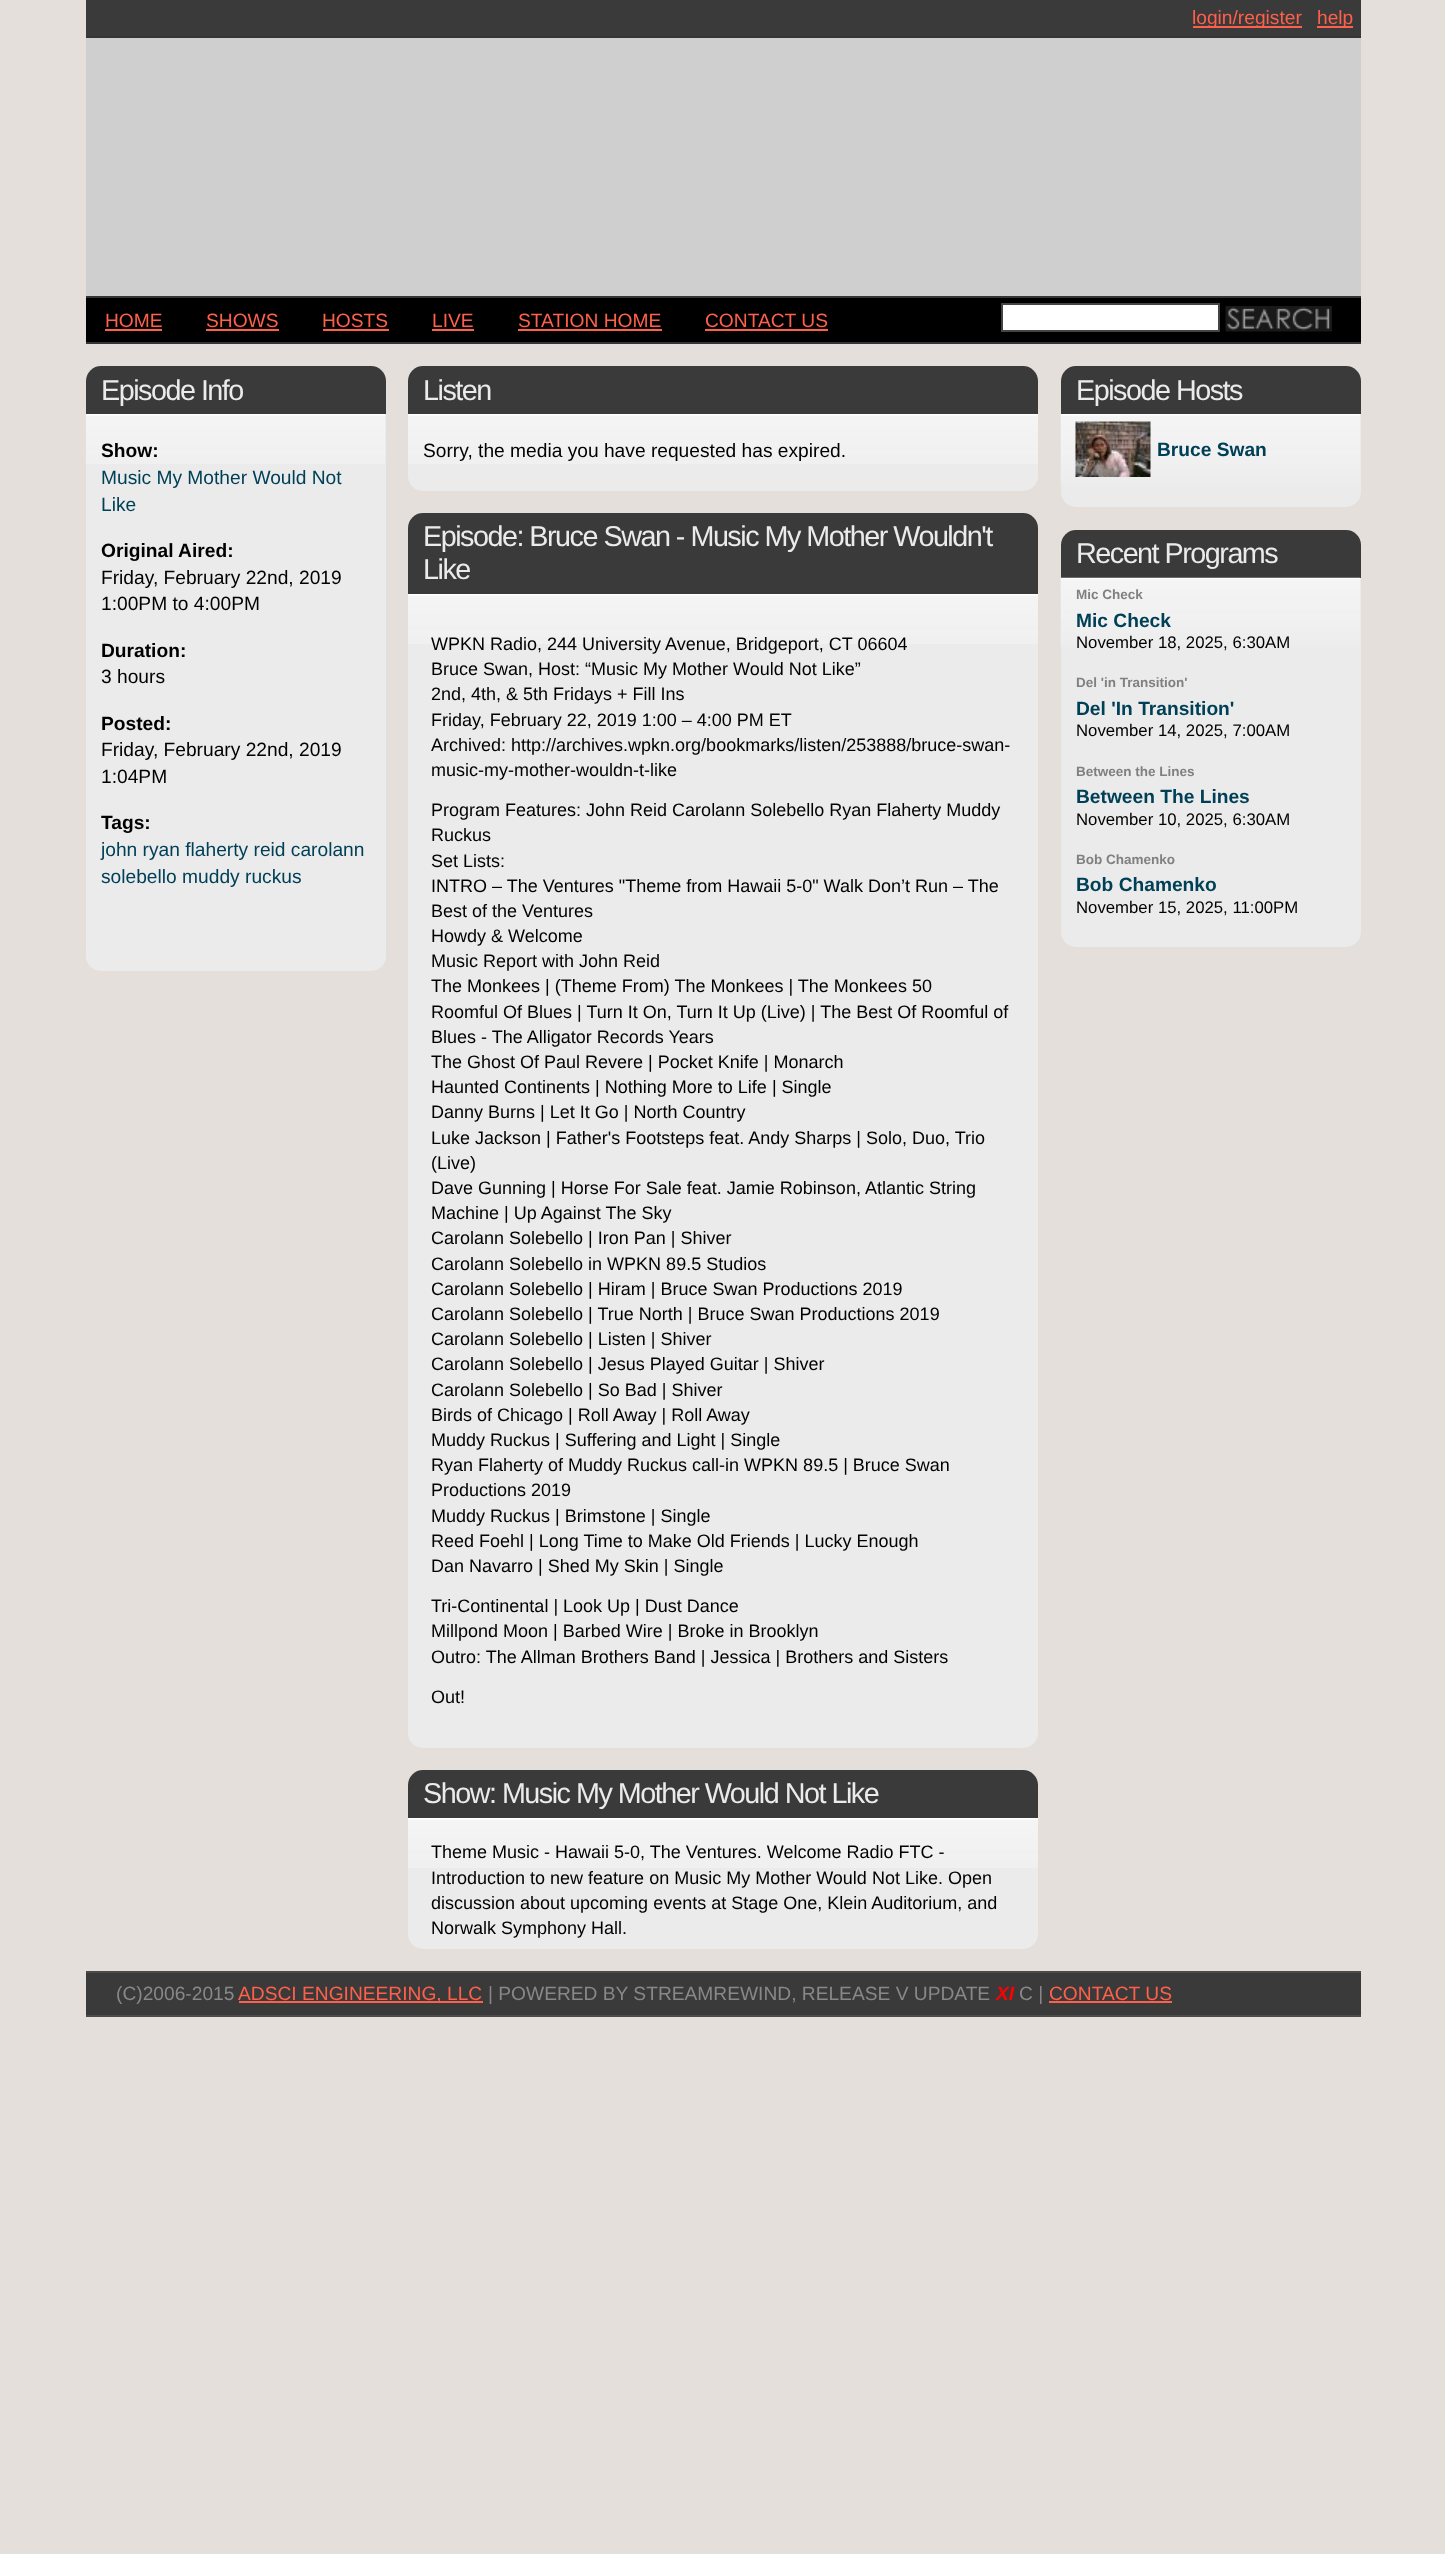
<!DOCTYPE html>
<meta charset="utf-8">
<style>body { margin: 0 } canvas { display: block }</style>
<canvas id="canvas" width="1445" height="2554"></canvas>
<img id="img1" src="images/1.png" hidden>
<img id="img2" src="images/2.png" hidden>
<img id="img3" src="images/3.png" hidden>
<img id="img4" src="images/4.png" hidden>
<img id="img5" src="images/5.png" hidden>
<img id="img6" src="images/6.png" hidden>
<script>
window.onload = function () {
    const canvas = document.getElementById('canvas');
    const context = canvas.getContext('2d');
    context.miterLimit = 4;
    context.fontKerning = 'normal';

    context.fillStyle = 'rgb(228, 223, 219)';
    context.fillRect(0, 0, 1445, 2554);
    context.fillStyle = 'rgb(58, 58, 58)';
    context.fillRect(86, 0, 1275, 36);
    context.fillStyle = 'rgb(53, 53, 53)';
    context.fillRect(86, 36, 1275, 2);
    context.fillStyle = 'rgb(254, 96, 75)';
    context.fillRect(1193, 26, 109, 2);
    context.fillRect(1317, 26, 36, 2);
    context.fillStyle = 'rgb(207, 207, 207)';
    context.fillRect(86, 38, 1275, 258);
    context.fillStyle = 'rgb(0, 0, 0)';
    context.fillRect(86, 298, 1275, 44);
    context.fillStyle = 'rgb(53, 53, 53)';
    context.fillRect(86, 296, 1275, 2);
    context.fillRect(86, 342, 1275, 2);
    context.fillStyle = 'rgb(254, 96, 75)';
    context.fillRect(105, 329, 57, 2);
    context.fillRect(206, 329, 73, 2);
    context.fillRect(323, 329, 66, 2);
    context.fillRect(432, 329, 42, 2);
    context.fillRect(518, 329, 144, 2);
    context.fillRect(705, 329, 123, 2);
    context.fillStyle = 'rgb(255, 255, 255)';
    context.beginPath();
    context.rect(1002, 304, 217, 27);
    context.fill();
    context.strokeStyle = 'rgb(68, 68, 68)';
    context.lineWidth = 2;
    context.stroke();
    context.drawImage(document.getElementById('img1'), 1225, 306, 107, 26);
    context.fillStyle = 'rgb(58, 58, 58)';
    context.beginPath();
    context.roundRect(86, 366, 300, 48, [15, 15, 0, 0]);
    context.fill();
    context.fillStyle = 'rgb(235, 235, 235)';
    context.beginPath();
    context.roundRect(86, 414, 300, 557, [0, 0, 15, 15]);
    context.fill();
    context.drawImage(document.getElementById('img2'), 85, 414, 301, 50);
    context.fillStyle = 'rgb(58, 58, 58)';
    context.beginPath();
    context.roundRect(408, 366, 630, 48, [15, 15, 0, 0]);
    context.fill();
    context.fillStyle = 'rgb(235, 235, 235)';
    context.beginPath();
    context.roundRect(408, 414, 630, 77, [0, 0, 15, 15]);
    context.fill();
    context.drawImage(document.getElementById('img3'), 408, 414, 630, 50);
    context.fillStyle = 'rgb(58, 58, 58)';
    context.beginPath();
    context.roundRect(408, 513, 630, 81, [15, 15, 0, 0]);
    context.fill();
    context.fillStyle = 'rgb(235, 235, 235)';
    context.beginPath();
    context.roundRect(408, 594, 630, 1154, [0, 0, 15, 15]);
    context.fill();
    context.drawImage(document.getElementById('img3'), 408, 594, 630, 50);
    context.fillStyle = 'rgb(58, 58, 58)';
    context.beginPath();
    context.roundRect(408, 1770, 630, 48, [15, 15, 0, 0]);
    context.fill();
    context.fillStyle = 'rgb(235, 235, 235)';
    context.beginPath();
    context.roundRect(408, 1818, 630, 131, [0, 0, 15, 15]);
    context.fill();
    context.drawImage(document.getElementById('img3'), 408, 1818, 630, 50);
    context.fillStyle = 'rgb(58, 58, 58)';
    context.beginPath();
    context.roundRect(1061, 366, 300, 48, [15, 15, 0, 0]);
    context.fill();
    context.fillStyle = 'rgb(235, 235, 235)';
    context.beginPath();
    context.roundRect(1061, 414, 300, 93, [0, 0, 15, 15]);
    context.fill();
    context.drawImage(document.getElementById('img4'), 1060, 414, 300, 71);
    context.drawImage(document.getElementById('img5'), 1075, 421, 76, 56);
    context.fillStyle = 'rgb(58, 58, 58)';
    context.beginPath();
    context.roundRect(1061, 530, 300, 48, [15, 15, 0, 0]);
    context.fill();
    context.fillStyle = 'rgb(235, 235, 235)';
    context.beginPath();
    context.roundRect(1061, 578, 300, 369, [0, 0, 15, 15]);
    context.fill();
    context.drawImage(document.getElementById('img6'), 1060, 577, 301, 72);
    context.fillStyle = 'rgb(58, 58, 58)';
    context.fillRect(86, 1973, 1275, 42);
    context.fillStyle = 'rgb(75, 75, 75)';
    context.fillRect(86, 1971, 1275, 2);
    context.fillRect(86, 2015, 1275, 2);
    context.fillStyle = 'rgb(254, 96, 75)';
    context.fillRect(239, 2001, 244, 2);
    context.fillRect(1049, 2001, 123, 2);
    context.font = '19.2px Liberation Sans';
    context.fillText('login/register', 1192, 24);
    context.fillText('help', 1317, 24);
    context.fillText('HOME', 105, 327);
    context.fillText('SHOWS', 206, 327);
    context.fillText('HOSTS', 322, 327);
    context.fillText('LIVE', 432, 327);
    context.fillText('STATION HOME', 518, 327);
    context.fillText('CONTACT US', 705, 327);
    context.letterSpacing = '-1.5px';
    context.font = '28.75px Liberation Sans';
    context.fillStyle = 'rgb(235, 235, 235)';
    context.fillText('Episode Info', 101, 400);
    context.letterSpacing = '0px';
    context.font = 'bold 19.2px Liberation Sans';
    context.fillStyle = 'rgb(0, 0, 0)';
    context.fillText('Show:', 101, 457);
    context.font = '19.2px Liberation Sans';
    context.fillStyle = 'rgb(0, 64, 86)';
    context.fillText('Music My Mother Would Not', 101, 484);
    context.fillText('Like', 101, 511);
    context.font = 'bold 19.2px Liberation Sans';
    context.fillStyle = 'rgb(0, 0, 0)';
    context.fillText('Original Aired:', 101, 557);
    context.font = '19.2px Liberation Sans';
    context.fillText('Friday, February 22nd, 2019', 101, 584);
    context.fillText('1:00PM to 4:00PM', 101, 610);
    context.font = 'bold 19.2px Liberation Sans';
    context.fillText('Duration:', 101, 657);
    context.font = '19.2px Liberation Sans';
    context.fillText('3 hours', 101, 683);
    context.font = 'bold 19.2px Liberation Sans';
    context.fillText('Posted:', 101, 730);
    context.font = '19.2px Liberation Sans';
    context.fillText('Friday, February 22nd, 2019', 101, 756);
    context.fillText('1:04PM', 101, 783);
    context.font = 'bold 19.2px Liberation Sans';
    context.fillText('Tags:', 101, 829);
    context.font = '19.2px Liberation Sans';
    context.fillStyle = 'rgb(0, 64, 86)';
    context.fillText('john ryan flaherty reid carolann', 101, 856);
    context.fillText('solebello muddy ruckus', 101, 883);
    context.letterSpacing = '-1.5px';
    context.font = '28.75px Liberation Sans';
    context.fillStyle = 'rgb(235, 235, 235)';
    context.fillText('Listen', 423, 400);
    context.letterSpacing = '0px';
    context.font = '19.2px Liberation Sans';
    context.fillStyle = 'rgb(0, 0, 0)';
    context.fillText('Sorry, the media you have requested has expired.', 423, 457);
    context.letterSpacing = '-1.5px';
    context.font = '28.75px Liberation Sans';
    context.fillStyle = 'rgb(235, 235, 235)';
    context.fillText('Episode: Bruce Swan - Music My Mother Wouldn\'t', 423, 546);
    context.fillText('Like', 423, 579);
    context.letterSpacing = '0px';
    context.font = '18px Liberation Sans';
    context.fillStyle = 'rgb(0, 0, 0)';
    context.fillText('WPKN Radio, 244 University Avenue, Bridgeport, CT 06604', 431, 650);
    context.fillText('Bruce Swan, Host: “Music My Mother Would Not Like”', 431, 675);
    context.fillText('2nd, 4th, & 5th Fridays + Fill Ins', 431, 700);
    context.fillText('Friday, February 22, 2019 1:00 – 4:00 PM ET', 431, 726);
    context.fillText('Archived: http://archives.wpkn.org/bookmarks/listen/253888/bruce-swan-', 431, 751);
    context.fillText('music-my-mother-wouldn-t-like', 431, 776);
    context.fillText('Program Features: John Reid Carolann Solebello Ryan Flaherty Muddy', 431, 816);
    context.fillText('Ruckus', 431, 841);
    context.fillText('Set Lists:', 431, 867);
    context.fillText('INTRO – The Ventures "Theme from Hawaii 5-0" Walk Don’t Run – The', 431, 892);
    context.fillText('Best of the Ventures', 431, 917);
    context.fillText('Howdy & Welcome', 431, 942);
    context.fillText('Music Report with John Reid', 431, 967);
    context.fillText('The Monkees | (Theme From) The Monkees | The Monkees 50', 431, 992);
    context.fillText('Roomful Of Blues | Turn It On, Turn It Up (Live) | The Best Of Roomful of', 431, 1018);
    context.fillText('Blues - The Alligator Records Years', 431, 1043);
    context.fillText('The Ghost Of Paul Revere | Pocket Knife | Monarch', 431, 1068);
    context.fillText('Haunted Continents | Nothing More to Life | Single', 431, 1093);
    context.fillText('Danny Burns | Let It Go | North Country', 431, 1118);
    context.fillText('Luke Jackson | Father\'s Footsteps feat. Andy Sharps | Solo, Duo, Trio', 431, 1144);
    context.fillText('(Live)', 431, 1169);
    context.fillText('Dave Gunning | Horse For Sale feat. Jamie Robinson, Atlantic String', 431, 1194);
    context.fillText('Machine | Up Against The Sky', 431, 1219);
    context.fillText('Carolann Solebello | Iron Pan | Shiver', 431, 1244);
    context.fillText('Carolann Solebello in WPKN 89.5 Studios', 431, 1270);
    context.fillText('Carolann Solebello | Hiram | Bruce Swan Productions 2019', 431, 1295);
    context.fillText('Carolann Solebello | True North | Bruce Swan Productions 2019', 431, 1320);
    context.fillText('Carolann Solebello | Listen | Shiver', 431, 1345);
    context.fillText('Carolann Solebello | Jesus Played Guitar | Shiver', 431, 1370);
    context.fillText('Carolann Solebello | So Bad | Shiver', 431, 1396);
    context.fillText('Birds of Chicago | Roll Away | Roll Away', 431, 1421);
    context.fillText('Muddy Ruckus | Suffering and Light | Single', 431, 1446);
    context.fillText('Ryan Flaherty of Muddy Ruckus call-in WPKN 89.5 | Bruce Swan', 431, 1471);
    context.fillText('Productions 2019', 431, 1496);
    context.fillText('Muddy Ruckus | Brimstone | Single', 431, 1522);
    context.fillText('Reed Foehl | Long Time to Make Old Friends | Lucky Enough', 431, 1547);
    context.fillText('Dan Navarro | Shed My Skin | Single', 431, 1572);
    context.fillText('Tri-Continental | Look Up | Dust Dance', 431, 1612);
    context.fillText('Millpond Moon | Barbed Wire | Broke in Brooklyn', 431, 1637);
    context.fillText('Outro: The Allman Brothers Band | Jessica | Brothers and Sisters', 431, 1663);
    context.fillText('Out!', 431, 1703);
    context.letterSpacing = '-1.5px';
    context.font = '28.75px Liberation Sans';
    context.fillStyle = 'rgb(235, 235, 235)';
    context.fillText('Show: Music My Mother Would Not Like', 423, 1803);
    context.letterSpacing = '0px';
    context.font = '18px Liberation Sans';
    context.fillStyle = 'rgb(0, 0, 0)';
    context.fillText('Theme Music - Hawaii 5-0, The Ventures. Welcome Radio FTC -', 431, 1858);
    context.fillText('Introduction to new feature on Music My Mother Would Not Like. Open', 431, 1884);
    context.fillText('discussion about upcoming events at Stage One, Klein Auditorium, and', 431, 1909);
    context.fillText('Norwalk Symphony Hall.', 431, 1934);
    context.letterSpacing = '-1.5px';
    context.font = '28.75px Liberation Sans';
    context.fillStyle = 'rgb(235, 235, 235)';
    context.fillText('Episode Hosts', 1076, 400);
    context.letterSpacing = '0px';
    context.font = 'bold 19.2px Liberation Sans';
    context.fillStyle = 'rgb(0, 64, 86)';
    context.fillText('Bruce Swan', 1157, 456);
    context.letterSpacing = '-1.5px';
    context.font = '28.75px Liberation Sans';
    context.fillStyle = 'rgb(235, 235, 235)';
    context.fillText('Recent Programs', 1076, 563);
    context.letterSpacing = '0px';
    context.font = 'bold 13.5px Liberation Sans';
    context.fillStyle = 'rgb(128, 128, 128)';
    context.fillText('Mic Check', 1076, 599);
    context.font = 'bold 19.2px Liberation Sans';
    context.fillStyle = 'rgb(0, 64, 86)';
    context.fillText('Mic Check', 1076, 627);
    context.font = '16.75px Liberation Sans';
    context.fillStyle = 'rgb(0, 0, 0)';
    context.fillText('November 18, 2025, 6:30AM', 1076, 648);
    context.font = 'bold 13.5px Liberation Sans';
    context.fillStyle = 'rgb(128, 128, 128)';
    context.fillText('Del \'in Transition\'', 1076, 687);
    context.font = 'bold 19.2px Liberation Sans';
    context.fillStyle = 'rgb(0, 64, 86)';
    context.fillText('Del \'In Transition\'', 1076, 715);
    context.font = '16.75px Liberation Sans';
    context.fillStyle = 'rgb(0, 0, 0)';
    context.fillText('November 14, 2025, 7:00AM', 1076, 736);
    context.font = 'bold 13.5px Liberation Sans';
    context.fillStyle = 'rgb(128, 128, 128)';
    context.fillText('Between the Lines', 1076, 776);
    context.font = 'bold 19.2px Liberation Sans';
    context.fillStyle = 'rgb(0, 64, 86)';
    context.fillText('Between The Lines', 1076, 803);
    context.font = '16.75px Liberation Sans';
    context.fillStyle = 'rgb(0, 0, 0)';
    context.fillText('November 10, 2025, 6:30AM', 1076, 825);
    context.font = 'bold 13.5px Liberation Sans';
    context.fillStyle = 'rgb(128, 128, 128)';
    context.fillText('Bob Chamenko', 1076, 864);
    context.font = 'bold 19.2px Liberation Sans';
    context.fillStyle = 'rgb(0, 64, 86)';
    context.fillText('Bob Chamenko', 1076, 891);
    context.font = '16.75px Liberation Sans';
    context.fillStyle = 'rgb(0, 0, 0)';
    context.fillText('November 15, 2025, 11:00PM', 1076, 913);
    context.font = '19.2px Liberation Sans';
    context.fillStyle = 'rgb(136, 136, 136)';
    context.fillText('(C)2006-2015', 116, 2000);
    context.fillStyle = 'rgb(254, 96, 75)';
    context.fillText('ADSCI ENGINEERING, LLC', 238, 2000);
    context.fillStyle = 'rgb(136, 136, 136)';
    context.fillText('| POWERED BY STREAMREWIND, RELEASE V UPDATE', 488, 2000);
    context.font = 'italic bold 19.2px Liberation Sans';
    context.fillStyle = 'rgb(255, 0, 0)';
    context.fillText('XI', 996, 2000);
    context.font = '19.2px Liberation Sans';
    context.fillStyle = 'rgb(136, 136, 136)';
    context.fillText('C |', 1019, 2000);
    context.fillStyle = 'rgb(254, 96, 75)';
    context.fillText('CONTACT US', 1049, 2000);
};
</script>
